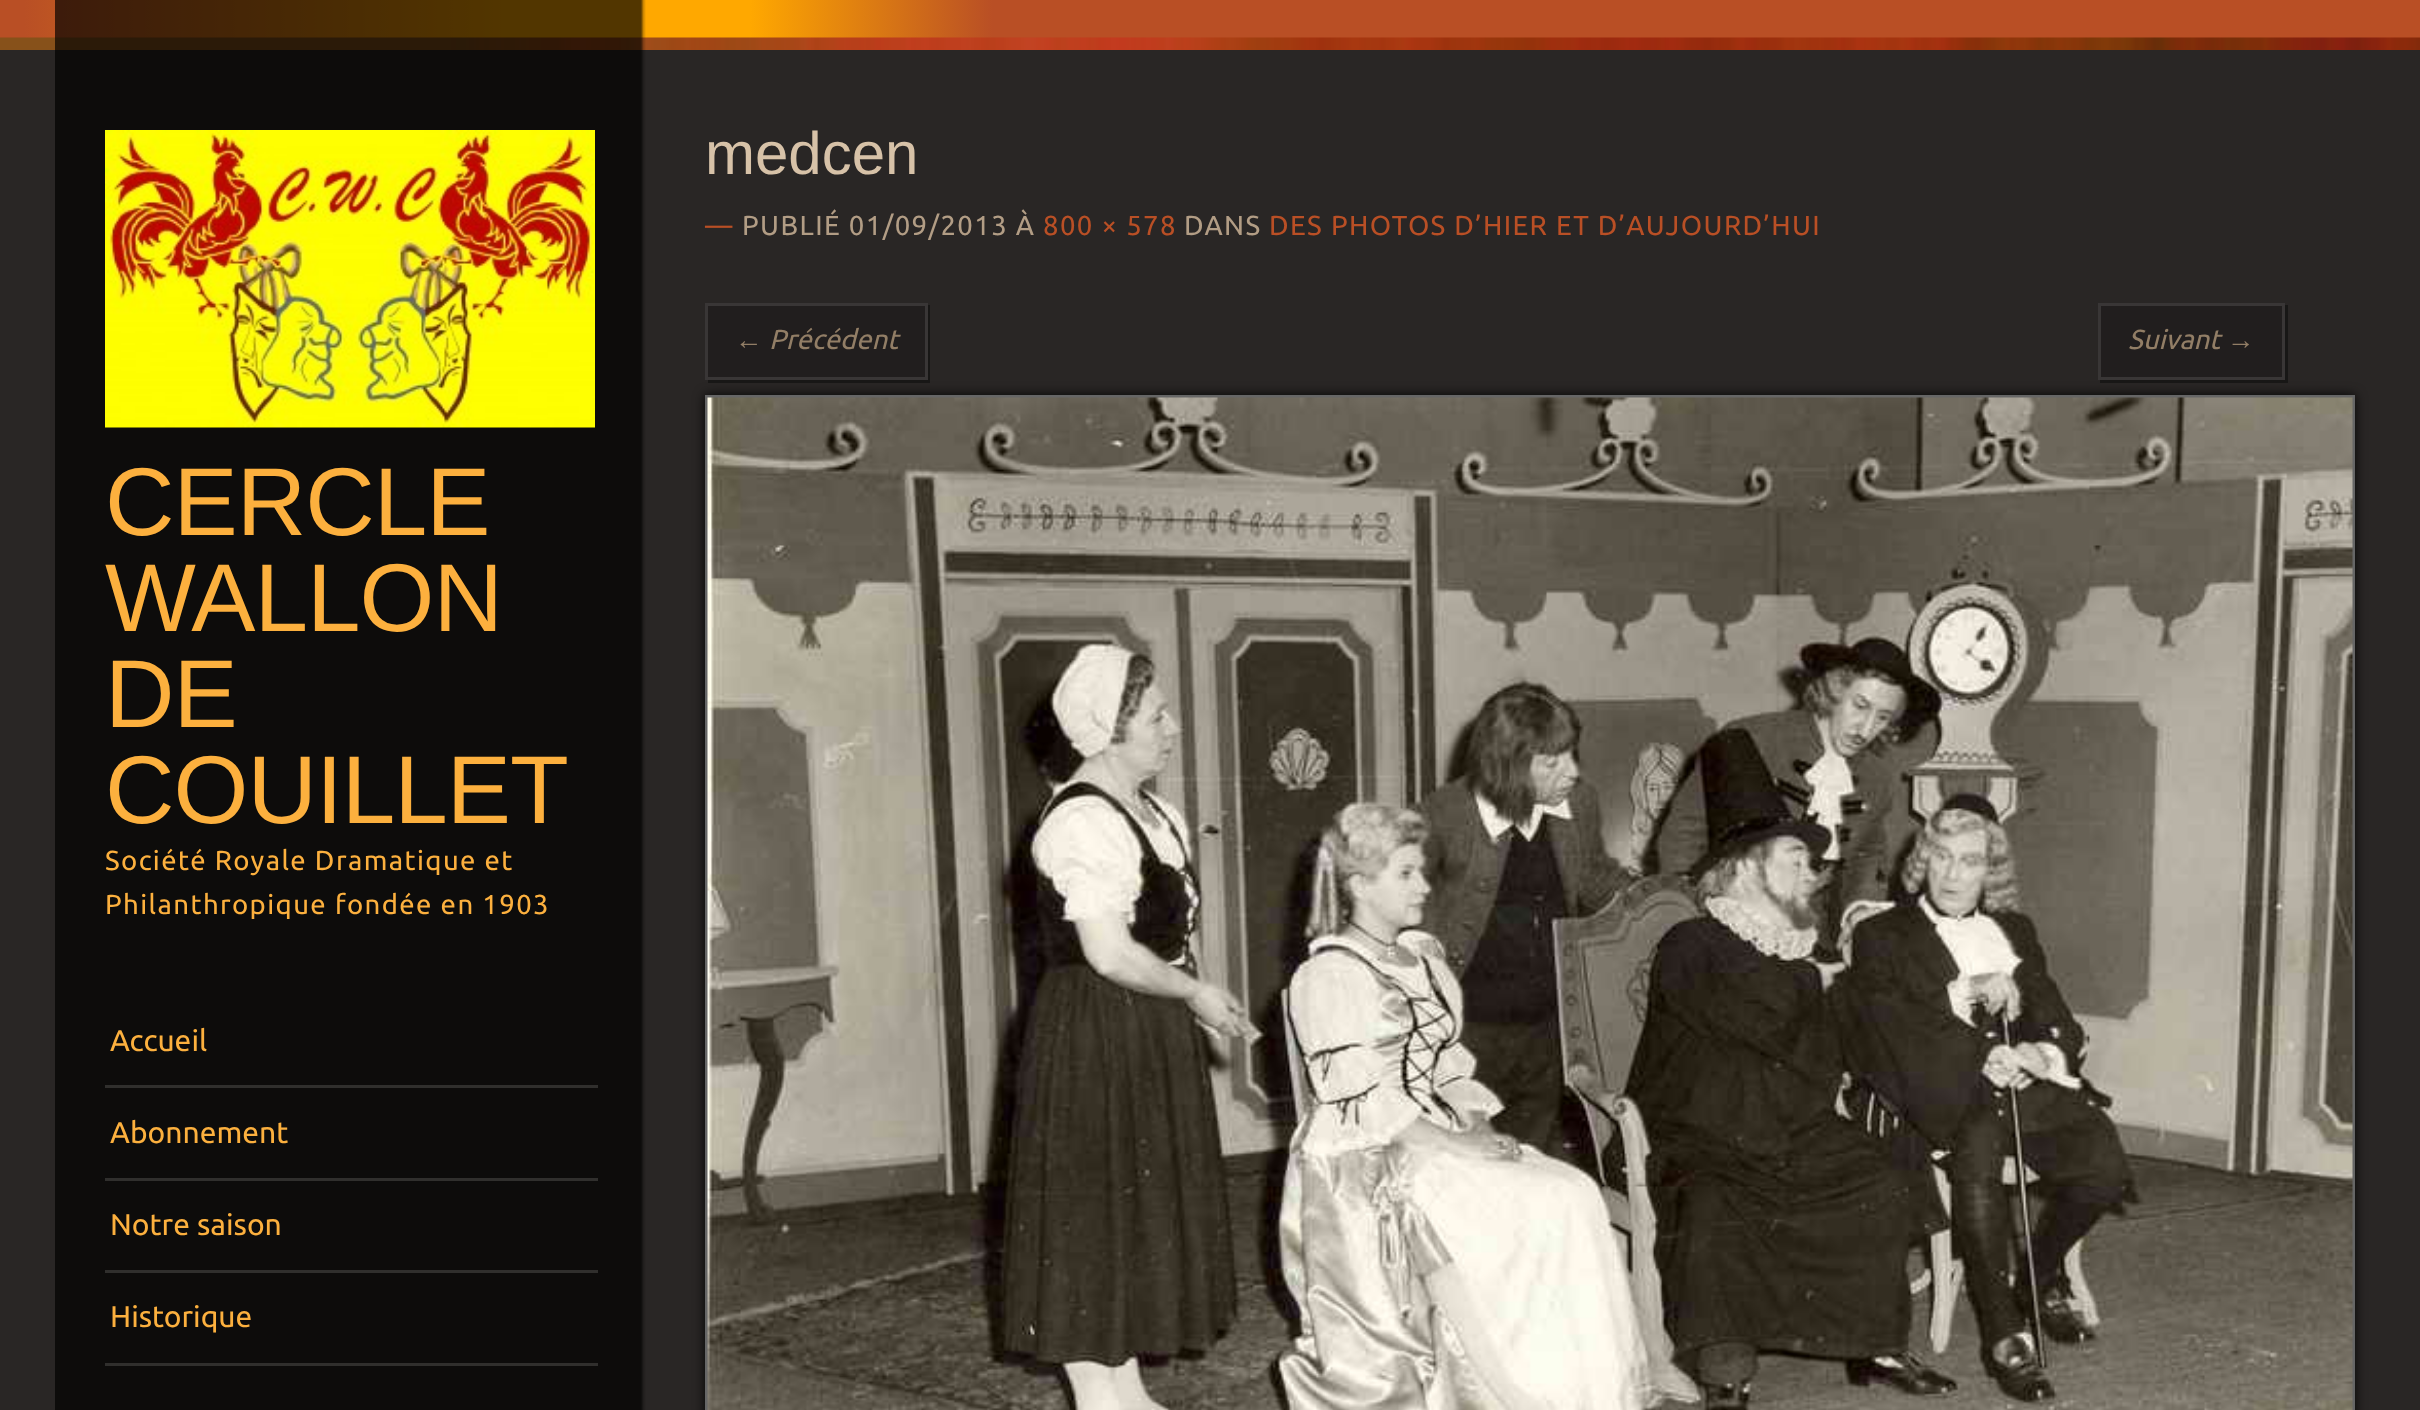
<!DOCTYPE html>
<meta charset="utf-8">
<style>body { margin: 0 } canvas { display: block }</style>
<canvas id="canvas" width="2420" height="1410"></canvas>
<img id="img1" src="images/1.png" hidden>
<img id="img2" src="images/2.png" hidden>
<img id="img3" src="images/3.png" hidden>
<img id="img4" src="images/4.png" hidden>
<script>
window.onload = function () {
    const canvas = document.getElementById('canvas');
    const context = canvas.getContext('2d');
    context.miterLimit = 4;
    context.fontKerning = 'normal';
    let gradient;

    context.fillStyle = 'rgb(41, 38, 37)';
    context.fillRect(0, 0, 2420, 1410);
    gradient = context.createLinearGradient(0, 25, 2420, 25);
    gradient.addColorStop(0.01, 'rgb(185, 79, 37)');
    gradient.addColorStop(0.21, 'rgb(255, 168, 0)');
    gradient.addColorStop(0.31, 'rgb(255, 168, 0)');
    gradient.addColorStop(0.41, 'rgb(185, 79, 37)');
    context.fillStyle = gradient;
    context.fillRect(0, 0, 2420, 38);
    context.drawImage(document.getElementById('img1'), 0, 37, 2420, 13);
    context.drawImage(document.getElementById('img2'), 55, 0, 591, 1410);
    context.fillStyle = 'rgba(0, 0, 0, 0.9)';
    context.filter = 'blur(6px)';
    context.beginPath();
    context.rect(705, 395, 1650, 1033);
    context.fill();
    context.filter = 'none';
    context.fillStyle = 'rgb(24, 23, 22)';
    context.beginPath();
    context.moveTo(708, 380);
    context.lineTo(708, 383);
    context.lineTo(930, 383);
    context.lineTo(930, 305);
    context.lineTo(928, 305);
    context.lineTo(928, 380);
    context.closePath();
    context.fill();
    context.fillStyle = 'rgb(33, 30, 30)';
    context.beginPath();
    context.rect(706.5, 304.5, 220, 74);
    context.fill();
    context.strokeStyle = 'rgb(57, 54, 54)';
    context.lineWidth = 3;
    context.stroke();
    context.fillStyle = 'rgb(24, 23, 22)';
    context.beginPath();
    context.moveTo(2100, 380);
    context.lineTo(2100, 383);
    context.lineTo(2288, 383);
    context.lineTo(2288, 305);
    context.lineTo(2285, 305);
    context.lineTo(2285, 380);
    context.closePath();
    context.fill();
    context.fillStyle = 'rgb(33, 30, 30)';
    context.beginPath();
    context.rect(2099.5, 304.5, 184, 74);
    context.fill();
    context.stroke();
    context.strokeStyle = 'rgb(102, 102, 102)';
    context.strokeRect(706.5, 396.5, 1647, 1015);
    context.drawImage(document.getElementById('img3'), 707, 397, 1646, 1013);
    context.drawImage(document.getElementById('img4'), 105, 130, 490, 298);
    context.fillStyle = 'rgb(48, 47, 45)';
    context.fillRect(105, 1085, 493, 3);
    context.fillRect(105, 1178, 493, 3);
    context.fillRect(105, 1270, 493, 3);
    context.fillRect(105, 1363, 493, 3);
    context.font = '60px Liberation Sans';
    context.fillStyle = 'rgb(215, 194, 168)';
    context.fillText('medcen', 705, 174);
    context.letterSpacing = '1.4px';
    context.font = '27.5px Ubuntu';
    context.fillStyle = 'rgb(185, 79, 37)';
    context.fillText('—', 705, 235);
    context.fillStyle = 'rgb(178, 157, 133)';
    context.fillText('PUBLIÉ 01/09/2013 À', 742, 235);
    context.fillStyle = 'rgb(185, 79, 37)';
    context.fillText('800 × 578', 1043, 235);
    context.fillStyle = 'rgb(178, 157, 133)';
    context.fillText('DANS', 1184, 235);
    context.fillStyle = 'rgb(185, 79, 37)';
    context.fillText('DES PHOTOS D’HIER ET D’AUJOURD’HUI', 1269, 235);
    context.letterSpacing = '0px';
    context.font = 'italic 27.5px Liberation Sans';
    context.fillStyle = 'rgb(146, 126, 102)';
    context.fillText('←', 735, 349);
    context.font = 'italic 27.5px Ubuntu';
    context.fillText('Précédent', 769, 349);
    context.fillText('Suivant', 2128, 349);
    context.font = 'italic 27.5px Liberation Sans';
    context.fillText('→', 2227, 349);
    context.letterSpacing = '-1px';
    context.font = '96.25px Liberation Sans';
    context.fillStyle = 'rgb(252, 176, 62)';
    context.fillText('CERCLE', 105, 535);
    context.fillText('WALLON', 105, 631);
    context.fillText('DE', 105, 727);
    context.fillText('COUILLET', 105, 823);
    context.letterSpacing = '1.4px';
    context.font = '27.5px Ubuntu';
    context.fillText('Société Royale Dramatique et', 105, 870);
    context.fillText('Philanthropique fondée en 1903', 105, 914);
    context.letterSpacing = '0px';
    context.font = '30px Ubuntu';
    context.fillText('Accueil', 110, 1051);
    context.fillText('Abonnement', 110, 1143);
    context.fillText('Notre saison', 110, 1235);
    context.fillText('Historique', 110, 1327);
};
</script>
